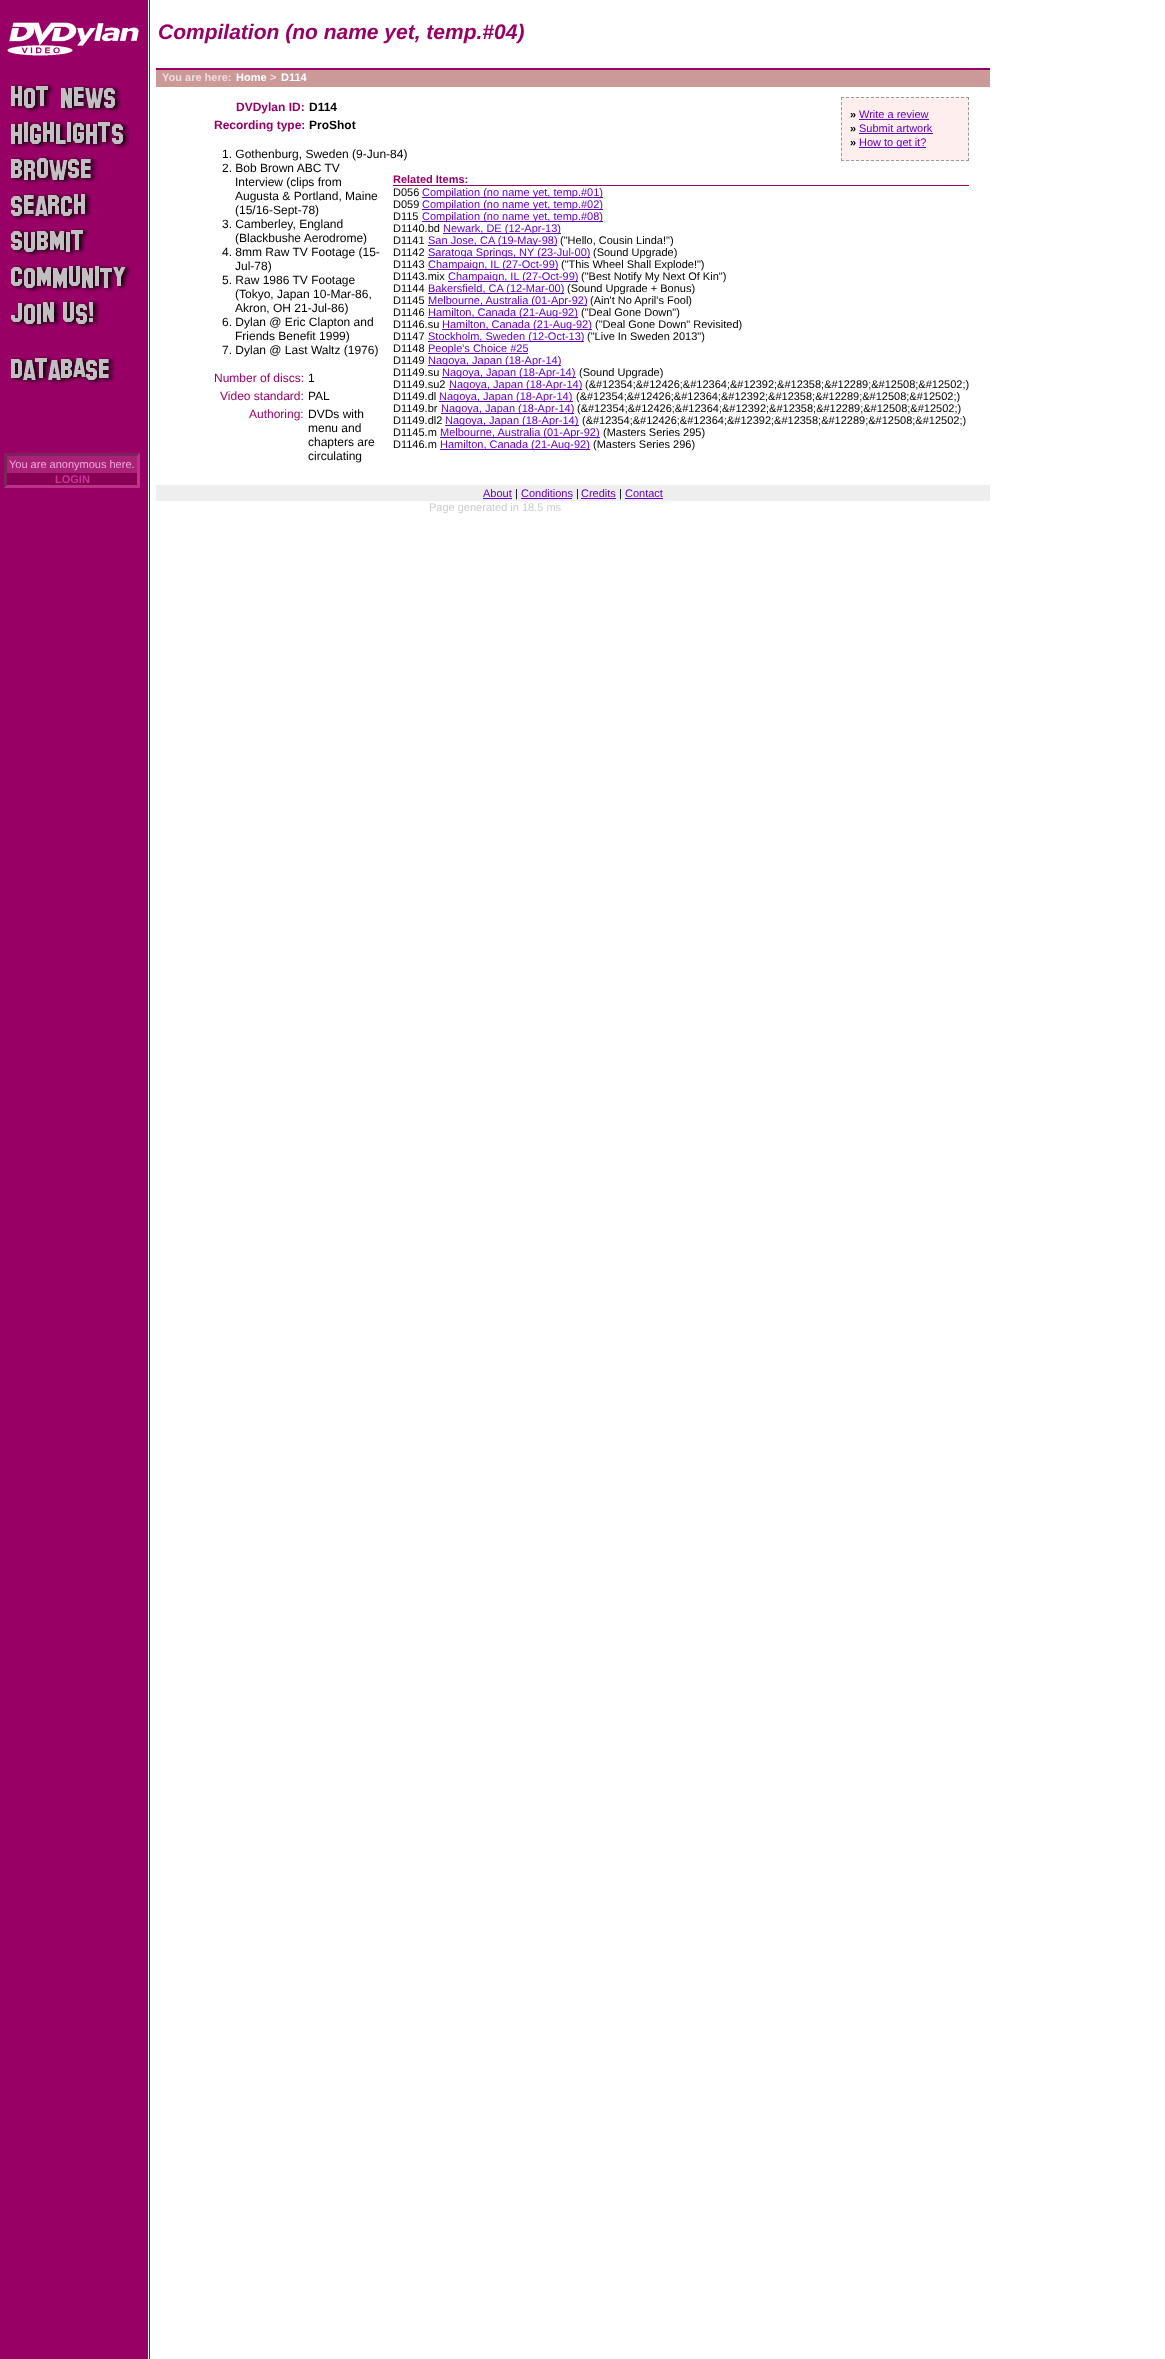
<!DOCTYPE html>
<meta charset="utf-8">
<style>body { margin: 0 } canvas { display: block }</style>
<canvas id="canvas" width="1165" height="2359"></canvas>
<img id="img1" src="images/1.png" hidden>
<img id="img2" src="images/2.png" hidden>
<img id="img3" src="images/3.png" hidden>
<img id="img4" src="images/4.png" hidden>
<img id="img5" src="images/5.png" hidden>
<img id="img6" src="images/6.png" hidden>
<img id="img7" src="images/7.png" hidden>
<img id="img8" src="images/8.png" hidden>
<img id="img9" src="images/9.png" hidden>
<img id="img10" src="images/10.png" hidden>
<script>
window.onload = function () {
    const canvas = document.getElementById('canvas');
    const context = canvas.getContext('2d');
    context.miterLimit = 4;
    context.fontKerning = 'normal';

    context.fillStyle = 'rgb(255, 255, 255)';
    context.fillRect(0, 0, 1165, 2359);
    context.drawImage(document.getElementById('img1'), 0, 0, 150, 2359);
    context.drawImage(document.getElementById('img2'), 7, 22, 132, 34);
    context.fillStyle = 'rgb(153, 0, 102)';
    context.fillRect(156, 68, 834, 2);
    context.fillStyle = 'rgb(204, 153, 153)';
    context.fillRect(156, 70, 834, 17);
    context.drawImage(document.getElementById('img3'), 11, 84, 110, 28);
    context.drawImage(document.getElementById('img4'), 11, 120, 118, 28);
    context.drawImage(document.getElementById('img5'), 11, 156, 86, 28);
    context.drawImage(document.getElementById('img6'), 11, 192, 80, 28);
    context.drawImage(document.getElementById('img7'), 11, 228, 78, 28);
    context.drawImage(document.getElementById('img8'), 11, 264, 120, 28);
    context.drawImage(document.getElementById('img9'), 11, 300, 88, 28);
    context.drawImage(document.getElementById('img10'), 11, 356, 104, 28);
    context.fillStyle = 'rgb(255, 238, 238)';
    context.fillRect(841, 97, 128, 64);
    context.beginPath();
    context.moveTo(841, 97.5);
    context.lineTo(969, 97.5);
    context.strokeStyle = 'rgb(153, 153, 153)';
    context.setLineDash([3, 2]);
    context.stroke();
    context.beginPath();
    context.moveTo(968.5, 97);
    context.lineTo(968.5, 161);
    context.setLineDash([3, 2.08]);
    context.stroke();
    context.beginPath();
    context.moveTo(841, 160.5);
    context.lineTo(969, 160.5);
    context.setLineDash([3, 2]);
    context.stroke();
    context.beginPath();
    context.moveTo(841.5, 97);
    context.lineTo(841.5, 161);
    context.setLineDash([3, 2.08]);
    context.stroke();
    context.fillStyle = 'rgb(102, 0, 204)';
    context.fillRect(859, 119, 70, 1);
    context.fillRect(859, 133, 74, 1);
    context.fillRect(859, 147, 67, 1);
    context.fillStyle = 'rgb(153, 0, 102)';
    context.fillRect(393, 185, 576, 1);
    context.fillStyle = 'rgb(102, 0, 204)';
    context.fillRect(422, 197, 181, 1);
    context.fillRect(422, 209, 181, 1);
    context.fillRect(422, 221, 181, 1);
    context.fillRect(443, 233, 118, 1);
    context.fillRect(428, 245, 129, 1);
    context.fillRect(428, 257, 162, 1);
    context.fillRect(428, 269, 130, 1);
    context.fillRect(448, 281, 130, 1);
    context.fillRect(428, 293, 136, 1);
    context.fillRect(428, 305, 159, 1);
    context.fillRect(428, 317, 150, 1);
    context.fillRect(442, 329, 150, 1);
    context.fillRect(428, 341, 156, 1);
    context.fillRect(428, 353, 100, 1);
    context.fillRect(428, 365, 133, 1);
    context.fillRect(442, 377, 134, 1);
    context.fillRect(449, 389, 133, 1);
    context.fillRect(439, 401, 134, 1);
    context.fillRect(441, 413, 133, 1);
    context.fillRect(445, 425, 134, 1);
    context.fillRect(440, 437, 160, 1);
    context.fillRect(440, 449, 150, 1);
    context.fillStyle = 'rgb(170, 34, 119)';
    context.fillRect(4, 453, 136, 35);
    context.fillStyle = 'rgb(125, 34, 91)';
    context.beginPath();
    context.moveTo(4, 453);
    context.lineTo(140, 453);
    context.lineTo(137, 456);
    context.lineTo(7, 456);
    context.closePath();
    context.fill();
    context.fillStyle = 'rgb(187, 51, 136)';
    context.beginPath();
    context.moveTo(140, 453);
    context.lineTo(140, 488);
    context.lineTo(137, 485);
    context.lineTo(137, 456);
    context.closePath();
    context.fill();
    context.beginPath();
    context.moveTo(140, 488);
    context.lineTo(4, 488);
    context.lineTo(7, 485);
    context.lineTo(137, 485);
    context.closePath();
    context.fill();
    context.fillStyle = 'rgb(125, 34, 91)';
    context.beginPath();
    context.moveTo(4, 488);
    context.lineTo(4, 453);
    context.lineTo(7, 456);
    context.lineTo(7, 485);
    context.closePath();
    context.fill();
    context.fillStyle = 'rgb(136, 0, 85)';
    context.fillRect(7, 473, 130, 12);
    context.fillStyle = 'rgb(238, 238, 238)';
    context.fillRect(156, 485, 834, 16);
    context.fillStyle = 'rgb(102, 0, 204)';
    context.fillRect(483, 498, 29, 1);
    context.fillRect(521, 498, 51, 1);
    context.fillRect(581, 498, 35, 1);
    context.fillRect(625, 498, 38, 1);
    context.font = 'italic bold 21px Liberation Sans';
    context.fillStyle = 'rgb(153, 0, 102)';
    context.fillText('Compilation (no name yet, temp.#04)', 158, 39);
    context.font = 'bold 11px Liberation Sans';
    context.fillStyle = 'rgb(238, 221, 221)';
    context.fillText('You are here:', 162, 81);
    context.fillStyle = 'rgb(255, 255, 255)';
    context.fillText('Home', 236, 81);
    context.fillStyle = 'rgb(238, 221, 221)';
    context.fillText('>', 270, 81);
    context.fillStyle = 'rgb(255, 255, 255)';
    context.fillText('D114', 281, 81);
    context.font = 'bold 12px Liberation Sans';
    context.fillStyle = 'rgb(153, 0, 102)';
    context.fillText('DVDylan ID:', 236, 111);
    context.fillStyle = 'rgb(0, 0, 0)';
    context.fillText('D114', 309, 111);
    context.fillStyle = 'rgb(153, 0, 102)';
    context.fillText('Recording type:', 214, 129);
    context.fillStyle = 'rgb(0, 0, 0)';
    context.fillText('ProShot', 309, 129);
    context.font = 'bold 11px Liberation Sans';
    context.fillText('»', 850, 118);
    context.font = '11px Liberation Sans';
    context.fillStyle = 'rgb(102, 0, 204)';
    context.fillText('Write a review', 859, 118);
    context.font = 'bold 11px Liberation Sans';
    context.fillStyle = 'rgb(0, 0, 0)';
    context.fillText('»', 850, 132);
    context.font = '11px Liberation Sans';
    context.fillStyle = 'rgb(102, 0, 204)';
    context.fillText('Submit artwork', 859, 132);
    context.font = 'bold 11px Liberation Sans';
    context.fillStyle = 'rgb(0, 0, 0)';
    context.fillText('»', 850, 146);
    context.font = '11px Liberation Sans';
    context.fillStyle = 'rgb(102, 0, 204)';
    context.fillText('How to get it?', 859, 146);
    context.font = '12px Liberation Sans';
    context.fillStyle = 'rgb(0, 0, 0)';
    context.fillText('1. Gothenburg, Sweden (9-Jun-84)', 222, 158);
    context.fillText('2. Bob Brown ABC TV', 222, 172);
    context.fillText('Interview (clips from', 235, 186);
    context.fillText('Augusta & Portland, Maine', 235, 200);
    context.fillText('(15/16-Sept-78)', 235, 214);
    context.fillText('3. Camberley, England', 222, 228);
    context.fillText('(Blackbushe Aerodrome)', 235, 242);
    context.fillText('4. 8mm Raw TV Footage (15-', 222, 256);
    context.fillText('Jul-78)', 235, 270);
    context.fillText('5. Raw 1986 TV Footage', 222, 284);
    context.fillText('(Tokyo, Japan 10-Mar-86,', 235, 298);
    context.fillText('Akron, OH 21-Jul-86)', 235, 312);
    context.fillText('6. Dylan @ Eric Clapton and', 222, 326);
    context.fillText('Friends Benefit 1999)', 235, 340);
    context.fillText('7. Dylan @ Last Waltz (1976)', 222, 354);
    context.font = 'bold 11px Liberation Sans';
    context.fillStyle = 'rgb(153, 0, 102)';
    context.fillText('Related Items:', 393, 183);
    context.font = '11px Liberation Sans';
    context.fillStyle = 'rgb(0, 0, 0)';
    context.fillText('D056', 393, 196);
    context.fillStyle = 'rgb(102, 0, 204)';
    context.fillText('Compilation (no name yet, temp.#01)', 422, 196);
    context.fillStyle = 'rgb(0, 0, 0)';
    context.fillText('D059', 393, 208);
    context.fillStyle = 'rgb(102, 0, 204)';
    context.fillText('Compilation (no name yet, temp.#02)', 422, 208);
    context.fillStyle = 'rgb(0, 0, 0)';
    context.fillText('D115', 393, 220);
    context.fillStyle = 'rgb(102, 0, 204)';
    context.fillText('Compilation (no name yet, temp.#08)', 422, 220);
    context.fillStyle = 'rgb(0, 0, 0)';
    context.fillText('D1140.bd', 393, 232);
    context.fillStyle = 'rgb(102, 0, 204)';
    context.fillText('Newark, DE (12-Apr-13)', 443, 232);
    context.fillStyle = 'rgb(0, 0, 0)';
    context.fillText('D1141', 393, 244);
    context.fillStyle = 'rgb(102, 0, 204)';
    context.fillText('San Jose, CA (19-May-98)', 428, 244);
    context.fillStyle = 'rgb(0, 0, 0)';
    context.fillText('("Hello, Cousin Linda!")', 560, 244);
    context.fillText('D1142', 393, 256);
    context.fillStyle = 'rgb(102, 0, 204)';
    context.fillText('Saratoga Springs, NY (23-Jul-00)', 428, 256);
    context.fillStyle = 'rgb(0, 0, 0)';
    context.fillText('(Sound Upgrade)', 593, 256);
    context.fillText('D1143', 393, 268);
    context.fillStyle = 'rgb(102, 0, 204)';
    context.fillText('Champaign, IL (27-Oct-99)', 428, 268);
    context.fillStyle = 'rgb(0, 0, 0)';
    context.fillText('("This Wheel Shall Explode!")', 561, 268);
    context.fillText('D1143.mix', 393, 280);
    context.fillStyle = 'rgb(102, 0, 204)';
    context.fillText('Champaign, IL (27-Oct-99)', 448, 280);
    context.fillStyle = 'rgb(0, 0, 0)';
    context.fillText('("Best Notify My Next Of Kin")', 581, 280);
    context.fillText('D1144', 393, 292);
    context.fillStyle = 'rgb(102, 0, 204)';
    context.fillText('Bakersfield, CA (12-Mar-00)', 428, 292);
    context.fillStyle = 'rgb(0, 0, 0)';
    context.fillText('(Sound Upgrade + Bonus)', 567, 292);
    context.fillText('D1145', 393, 304);
    context.fillStyle = 'rgb(102, 0, 204)';
    context.fillText('Melbourne, Australia (01-Apr-92)', 428, 304);
    context.fillStyle = 'rgb(0, 0, 0)';
    context.fillText('(Ain\'t No April\'s Fool)', 590, 304);
    context.fillText('D1146', 393, 316);
    context.fillStyle = 'rgb(102, 0, 204)';
    context.fillText('Hamilton, Canada (21-Aug-92)', 428, 316);
    context.fillStyle = 'rgb(0, 0, 0)';
    context.fillText('("Deal Gone Down")', 581, 316);
    context.fillText('D1146.su', 393, 328);
    context.fillStyle = 'rgb(102, 0, 204)';
    context.fillText('Hamilton, Canada (21-Aug-92)', 442, 328);
    context.fillStyle = 'rgb(0, 0, 0)';
    context.fillText('("Deal Gone Down" Revisited)', 595, 328);
    context.fillText('D1147', 393, 340);
    context.fillStyle = 'rgb(102, 0, 204)';
    context.fillText('Stockholm, Sweden (12-Oct-13)', 428, 340);
    context.fillStyle = 'rgb(0, 0, 0)';
    context.fillText('("Live In Sweden 2013")', 587, 340);
    context.fillText('D1148', 393, 352);
    context.fillStyle = 'rgb(102, 0, 204)';
    context.fillText('People\'s Choice #25', 428, 352);
    context.fillStyle = 'rgb(0, 0, 0)';
    context.fillText('D1149', 393, 364);
    context.fillStyle = 'rgb(102, 0, 204)';
    context.fillText('Nagoya, Japan (18-Apr-14)', 428, 364);
    context.fillStyle = 'rgb(0, 0, 0)';
    context.fillText('D1149.su', 393, 376);
    context.fillStyle = 'rgb(102, 0, 204)';
    context.fillText('Nagoya, Japan (18-Apr-14)', 442, 376);
    context.fillStyle = 'rgb(0, 0, 0)';
    context.fillText('(Sound Upgrade)', 579, 376);
    context.fillText('D1149.su2', 393, 388);
    context.fillStyle = 'rgb(102, 0, 204)';
    context.fillText('Nagoya, Japan (18-Apr-14)', 449, 388);
    context.fillStyle = 'rgb(0, 0, 0)';
    context.fillText('(&#12354;&#12426;&#12364;&#12392;&#12358;&#12289;&#12508;&#12502;)', 585, 388);
    context.fillText('D1149.dl', 393, 400);
    context.fillStyle = 'rgb(102, 0, 204)';
    context.fillText('Nagoya, Japan (18-Apr-14)', 439, 400);
    context.fillStyle = 'rgb(0, 0, 0)';
    context.fillText('(&#12354;&#12426;&#12364;&#12392;&#12358;&#12289;&#12508;&#12502;)', 576, 400);
    context.fillText('D1149.br', 393, 412);
    context.fillStyle = 'rgb(102, 0, 204)';
    context.fillText('Nagoya, Japan (18-Apr-14)', 441, 412);
    context.fillStyle = 'rgb(0, 0, 0)';
    context.fillText('(&#12354;&#12426;&#12364;&#12392;&#12358;&#12289;&#12508;&#12502;)', 577, 412);
    context.fillText('D1149.dl2', 393, 424);
    context.fillStyle = 'rgb(102, 0, 204)';
    context.fillText('Nagoya, Japan (18-Apr-14)', 445, 424);
    context.fillStyle = 'rgb(0, 0, 0)';
    context.fillText('(&#12354;&#12426;&#12364;&#12392;&#12358;&#12289;&#12508;&#12502;)', 582, 424);
    context.fillText('D1145.m', 393, 436);
    context.fillStyle = 'rgb(102, 0, 204)';
    context.fillText('Melbourne, Australia (01-Apr-92)', 440, 436);
    context.fillStyle = 'rgb(0, 0, 0)';
    context.fillText('(Masters Series 295)', 603, 436);
    context.fillText('D1146.m', 393, 448);
    context.fillStyle = 'rgb(102, 0, 204)';
    context.fillText('Hamilton, Canada (21-Aug-92)', 440, 448);
    context.fillStyle = 'rgb(0, 0, 0)';
    context.fillText('(Masters Series 296)', 593, 448);
    context.font = '12px Liberation Sans';
    context.fillStyle = 'rgb(153, 0, 102)';
    context.fillText('Number of discs:', 214, 382);
    context.fillStyle = 'rgb(0, 0, 0)';
    context.fillText('1', 308, 382);
    context.fillStyle = 'rgb(153, 0, 102)';
    context.fillText('Video standard:', 220, 400);
    context.fillStyle = 'rgb(0, 0, 0)';
    context.fillText('PAL', 308, 400);
    context.fillStyle = 'rgb(153, 0, 102)';
    context.fillText('Authoring:', 249, 418);
    context.fillStyle = 'rgb(0, 0, 0)';
    context.fillText('DVDs with', 308, 418);
    context.fillText('menu and', 308, 432);
    context.fillText('chapters are', 308, 446);
    context.fillText('circulating', 308, 460);
    context.font = '11px Liberation Sans';
    context.fillStyle = 'rgb(238, 170, 221)';
    context.fillText('You are anonymous here.', 9, 468);
    context.font = 'bold 11px Liberation Sans';
    context.fillStyle = 'rgb(204, 51, 153)';
    context.fillText('LOGIN', 55, 483);
    context.font = '11px Liberation Sans';
    context.fillStyle = 'rgb(102, 0, 204)';
    context.fillText('About', 483, 497);
    context.fillStyle = 'rgb(0, 0, 0)';
    context.fillText('|', 515, 497);
    context.fillStyle = 'rgb(102, 0, 204)';
    context.fillText('Conditions', 521, 497);
    context.fillStyle = 'rgb(0, 0, 0)';
    context.fillText('|', 576, 497);
    context.fillStyle = 'rgb(102, 0, 204)';
    context.fillText('Credits', 581, 497);
    context.fillStyle = 'rgb(0, 0, 0)';
    context.fillText('|', 619, 497);
    context.fillStyle = 'rgb(102, 0, 204)';
    context.fillText('Contact', 625, 497);
    context.fillStyle = 'rgb(204, 204, 204)';
    context.fillText('Page generated in 18.5 ms', 429, 511);
};
</script>
